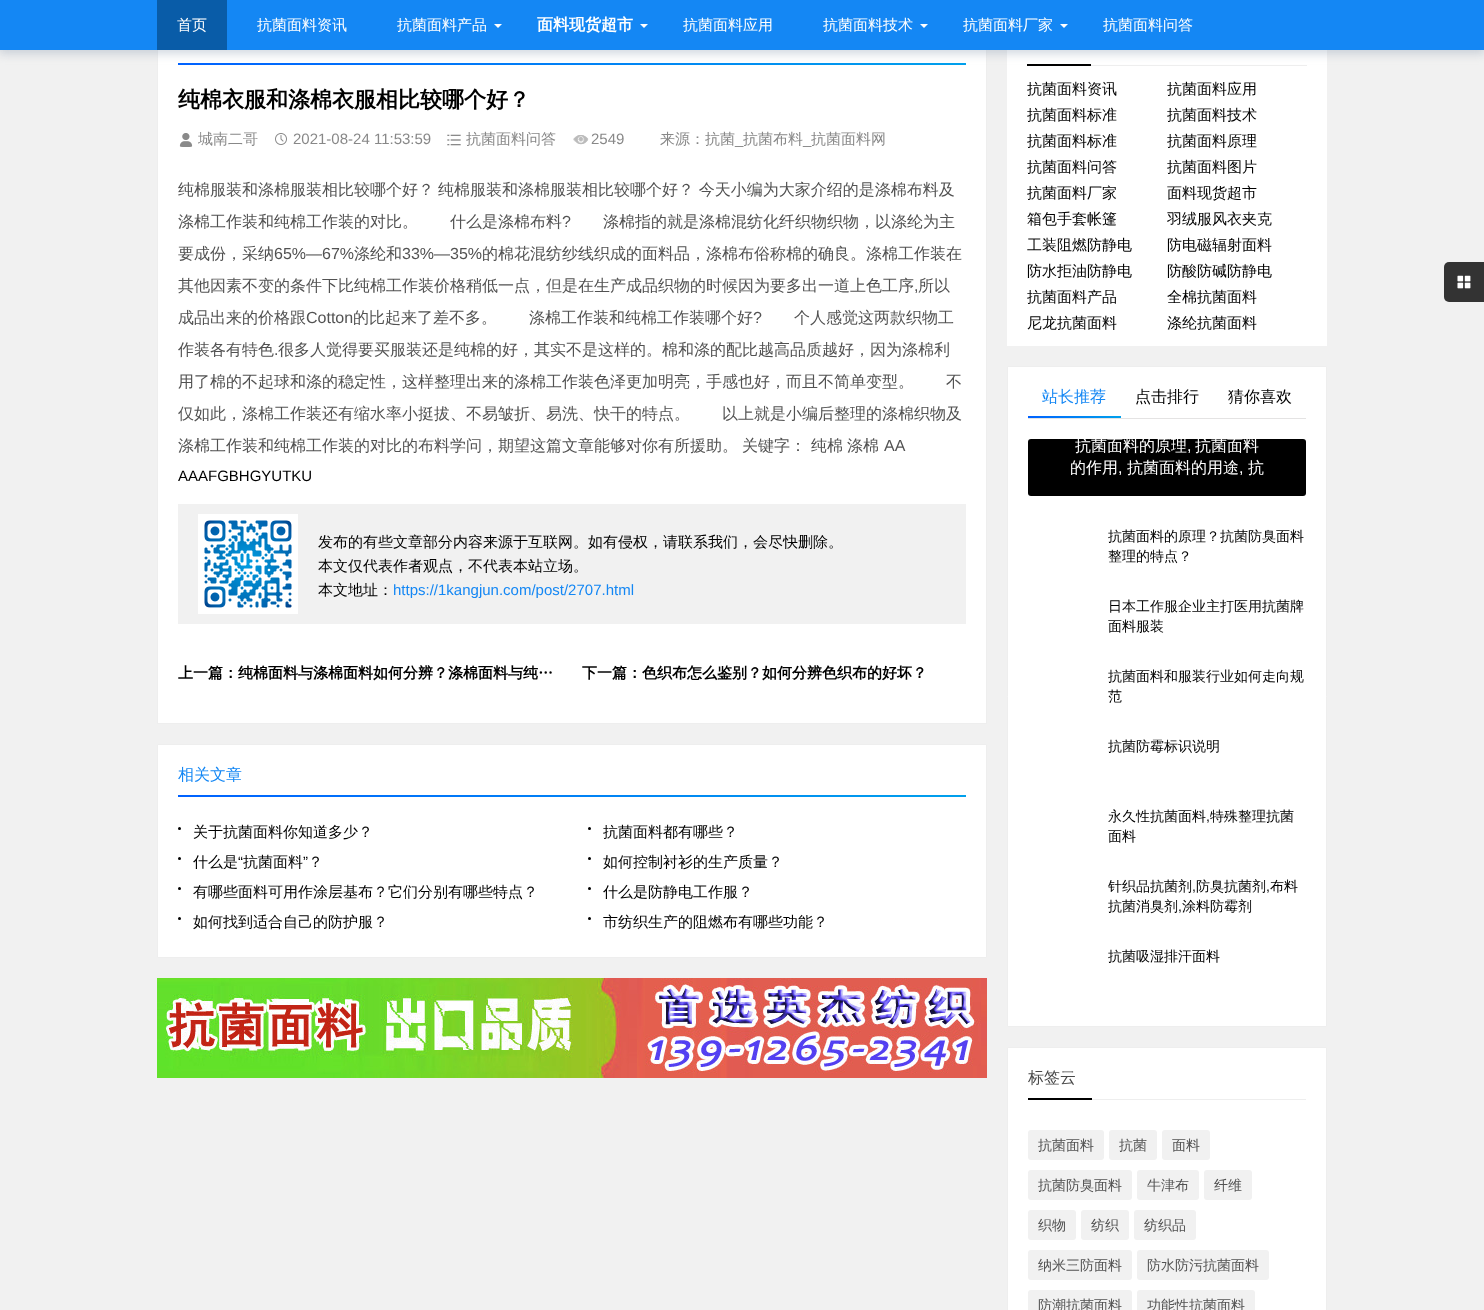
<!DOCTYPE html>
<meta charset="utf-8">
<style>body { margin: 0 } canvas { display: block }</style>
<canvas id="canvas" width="1484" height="1310"></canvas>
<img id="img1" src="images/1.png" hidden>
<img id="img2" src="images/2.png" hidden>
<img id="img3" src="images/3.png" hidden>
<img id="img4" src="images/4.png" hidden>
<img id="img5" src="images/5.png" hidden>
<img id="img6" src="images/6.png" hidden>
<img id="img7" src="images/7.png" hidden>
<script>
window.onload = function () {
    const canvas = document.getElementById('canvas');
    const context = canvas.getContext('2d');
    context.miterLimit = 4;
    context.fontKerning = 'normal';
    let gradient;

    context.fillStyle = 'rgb(241, 241, 241)';
    context.fillRect(0, 0, 1484, 1310);
    context.fillStyle = 'rgb(255, 255, 255)';
    context.fillRect(158, 50, 828, 673);
    context.strokeStyle = 'rgb(238, 238, 238)';
    context.strokeRect(157.5, 12.5, 829, 711);
    gradient = context.createLinearGradient(178, 64, 966, 64);
    gradient.addColorStop(0, 'rgb(0, 98, 255)');
    gradient.addColorStop(1, 'rgb(0, 160, 236)');
    context.fillStyle = gradient;
    context.fillRect(178, 63, 788, 2);
    context.fillStyle = 'rgb(255, 255, 255)';
    context.fillRect(1007, 50, 320, 296);
    context.fillStyle = 'rgb(238, 238, 238)';
    context.fillRect(1091, 65, 216, 1);
    context.fillStyle = 'rgb(0, 0, 0)';
    context.fillRect(1027, 64, 64, 2);
    context.fillStyle = 'rgba(144, 161, 180, 0.4)';
    context.filter = 'blur(5px)';
    context.beginPath();
    context.rect(-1, 2, 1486, 52);
    context.fill();
    context.filter = 'none';
    context.fillStyle = 'rgb(20, 135, 244)';
    context.fillRect(0, 0, 1484, 50);
    context.fillStyle = 'rgb(9, 92, 168)';
    context.fillRect(157, 0, 70, 50);
    context.fillStyle = 'rgb(255, 255, 255)';
    context.beginPath();
    context.moveTo(494, 24);
    context.lineTo(502, 24);
    context.lineTo(498, 28);
    context.closePath();
    context.fill();
    context.beginPath();
    context.moveTo(640, 24);
    context.lineTo(648, 24);
    context.lineTo(644, 28);
    context.closePath();
    context.fill();
    context.beginPath();
    context.moveTo(920, 24);
    context.lineTo(928, 24);
    context.lineTo(924, 28);
    context.closePath();
    context.fill();
    context.beginPath();
    context.moveTo(1060, 24);
    context.lineTo(1068, 24);
    context.lineTo(1064, 28);
    context.closePath();
    context.fill();
    context.drawImage(document.getElementById('img1'), 179, 133, 14, 14);
    context.drawImage(document.getElementById('img2'), 275, 133, 12, 12);
    context.drawImage(document.getElementById('img3'), 447, 134, 14, 12);
    context.drawImage(document.getElementById('img4'), 573, 135, 16, 10);
    context.fillStyle = 'rgb(241, 241, 241)';
    context.fillRect(178, 504, 788, 120);
    context.drawImage(document.getElementById('img5'), 198, 514, 100, 100);
    context.fillStyle = 'rgb(255, 255, 255)';
    context.beginPath();
    context.rect(157.5, 744.5, 829, 213);
    context.fill();
    context.stroke();
    gradient = context.createLinearGradient(178, 796, 966, 796);
    gradient.addColorStop(0, 'rgb(0, 98, 255)');
    gradient.addColorStop(1, 'rgb(0, 160, 236)');
    context.fillStyle = gradient;
    context.fillRect(178, 795, 788, 2);
    context.fillStyle = 'rgb(0, 0, 0)';
    context.beginPath();
    context.arc(179.5, 828.5, 1.5, 0, 2 * Math.PI);
    context.fill();
    context.beginPath();
    context.arc(589.5, 828.5, 1.5, 0, 2 * Math.PI);
    context.fill();
    context.beginPath();
    context.arc(179.5, 858.5, 1.5, 0, 2 * Math.PI);
    context.fill();
    context.beginPath();
    context.arc(589.5, 858.5, 1.5, 0, 2 * Math.PI);
    context.fill();
    context.beginPath();
    context.arc(179.5, 888.5, 1.5, 0, 2 * Math.PI);
    context.fill();
    context.beginPath();
    context.arc(589.5, 888.5, 1.5, 0, 2 * Math.PI);
    context.fill();
    context.beginPath();
    context.arc(179.5, 918.5, 1.5, 0, 2 * Math.PI);
    context.fill();
    context.beginPath();
    context.arc(589.5, 918.5, 1.5, 0, 2 * Math.PI);
    context.fill();
    context.drawImage(document.getElementById('img6'), 157, 978, 830, 100);
    context.fillStyle = 'rgb(255, 255, 255)';
    context.beginPath();
    context.rect(1007.5, 366.5, 319, 660);
    context.fill();
    context.stroke();
    context.fillStyle = 'rgb(228, 227, 227)';
    context.fillRect(1028, 418, 278, 1);
    gradient = context.createLinearGradient(1028, 417, 1121, 417);
    gradient.addColorStop(0, 'rgb(0, 98, 255)');
    gradient.addColorStop(1, 'rgb(0, 160, 236)');
    context.fillStyle = gradient;
    context.fillRect(1028, 416, 93, 2);
    context.fillStyle = 'rgb(0, 0, 0)';
    context.beginPath();
    context.roundRect(1028, 439, 278, 57, 3);
    context.fill();
    context.fillStyle = 'rgb(255, 255, 255)';
    context.beginPath();
    context.rect(1007.5, 1047.5, 319, 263);
    context.fill();
    context.stroke();
    context.fillStyle = 'rgb(238, 238, 238)';
    context.fillRect(1092, 1099, 214, 1);
    context.fillStyle = 'rgb(0, 0, 0)';
    context.fillRect(1028, 1098, 64, 2);
    context.fillStyle = 'rgb(241, 241, 241)';
    context.beginPath();
    context.roundRect(1028, 1130, 76, 30, 3);
    context.fill();
    context.beginPath();
    context.roundRect(1109, 1130, 48, 30, 3);
    context.fill();
    context.beginPath();
    context.roundRect(1162, 1130, 48, 30, 3);
    context.fill();
    context.beginPath();
    context.roundRect(1028, 1170, 104, 30, 3);
    context.fill();
    context.beginPath();
    context.roundRect(1137, 1170, 62, 30, 3);
    context.fill();
    context.beginPath();
    context.roundRect(1204, 1170, 48, 30, 3);
    context.fill();
    context.beginPath();
    context.roundRect(1028, 1210, 48, 30, 3);
    context.fill();
    context.beginPath();
    context.roundRect(1081, 1210, 48, 30, 3);
    context.fill();
    context.beginPath();
    context.roundRect(1134, 1210, 62, 30, 3);
    context.fill();
    context.beginPath();
    context.roundRect(1028, 1250, 104, 30, 3);
    context.fill();
    context.beginPath();
    context.roundRect(1137, 1250, 132, 30, 3);
    context.fill();
    context.beginPath();
    context.roundRect(1028, 1290, 104, 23, 3);
    context.fill();
    context.beginPath();
    context.roundRect(1137, 1290, 118, 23, 3);
    context.fill();
    context.fillStyle = 'rgb(51, 51, 51)';
    context.beginPath();
    context.roundRect(1444, 262, 40, 40, [5, 0, 0, 5]);
    context.fill();
    context.drawImage(document.getElementById('img7'), 1457, 275, 14, 14);
    context.font = '500 15px WenQuanYi Zen Hei';
    context.fillStyle = 'rgb(255, 255, 255)';
    context.fillText('首页', 177, 30);
    context.fillText('抗菌面料资讯', 257, 30);
    context.fillText('抗菌面料产品', 397, 30);
    context.font = 'bold 16px WenQuanYi Zen Hei';
    context.fillText('面料现货超市', 537, 30);
    context.font = '500 15px WenQuanYi Zen Hei';
    context.fillText('抗菌面料应用', 683, 30);
    context.fillText('抗菌面料技术', 823, 30);
    context.fillText('抗菌面料厂家', 963, 30);
    context.fillText('抗菌面料问答', 1103, 30);
    context.font = 'bold 22px WenQuanYi Zen Hei';
    context.fillStyle = 'rgb(0, 0, 0)';
    context.fillText('纯棉衣服和涤棉衣服相比较哪个好？', 178, 107);
    context.font = '500 15px WenQuanYi Zen Hei';
    context.fillStyle = 'rgb(136, 136, 136)';
    context.fillText('城南二哥', 198, 144);
    context.font = '15px Liberation Sans';
    context.fillText('2021-08-24 11:53:59', 293, 144);
    context.font = '500 15px WenQuanYi Zen Hei';
    context.fillText('抗菌面料问答', 466, 144);
    context.font = '15px Liberation Sans';
    context.fillText('2549', 591, 144);
    context.font = '500 15px WenQuanYi Zen Hei';
    context.fillText('来源：抗菌', 660, 144);
    context.font = '15px Liberation Sans';
    context.fillText('_', 735, 144);
    context.font = '500 15px WenQuanYi Zen Hei';
    context.fillText('抗菌布料', 743, 144);
    context.font = '15px Liberation Sans';
    context.fillText('_', 803, 144);
    context.font = '500 15px WenQuanYi Zen Hei';
    context.fillText('抗菌面料网', 811, 144);
    context.font = '500 16px WenQuanYi Zen Hei';
    context.fillStyle = 'rgb(82, 82, 82)';
    context.fillText('纯棉服装和涤棉服装相比较哪个好？', 178, 195);
    context.fillText('纯棉服装和涤棉服装相比较哪个好？ 今天小编为大家介绍的是涤棉布料及', 438, 195);
    context.fillText('涤棉工作装和纯棉工作装的对比。　　什么是涤棉布料', 178, 227);
    context.font = '16px Liberation Sans';
    context.fillText('?', 562, 227);
    context.font = '500 16px WenQuanYi Zen Hei';
    context.fillText('涤棉指的就是涤棉混纺化纤织物织物，以涤纶为主', 603, 227);
    context.fillText('要成份，采纳', 178, 259);
    context.font = '16px Liberation Sans';
    context.fillText('65%—67%', 274, 259);
    context.font = '500 16px WenQuanYi Zen Hei';
    context.fillText('涤纶和', 354, 259);
    context.font = '16px Liberation Sans';
    context.fillText('33%—35%', 402, 259);
    context.font = '500 16px WenQuanYi Zen Hei';
    context.fillText('的棉花混纺纱线织成的面料品，涤棉布俗称棉的确良。涤棉工作装在', 482, 259);
    context.fillText('其他因素不变的条件下比纯棉工作装价格稍低一点，但是在生产成品织物的时候因为要多出一道上色工序', 178, 291);
    context.font = '16px Liberation Sans';
    context.fillText(',', 914, 291);
    context.font = '500 16px WenQuanYi Zen Hei';
    context.fillText('所以', 918, 291);
    context.fillText('成品出来的价格跟', 178, 323);
    context.font = '16px Liberation Sans';
    context.fillText('Cotton', 306, 323);
    context.font = '500 16px WenQuanYi Zen Hei';
    context.fillText('的比起来了差不多。　　涤棉工作装和纯棉工作装哪个好', 353, 323);
    context.font = '16px Liberation Sans';
    context.fillText('?', 753, 323);
    context.font = '500 16px WenQuanYi Zen Hei';
    context.fillText('个人感觉这两款织物工', 794, 323);
    context.fillText('作装各有特色', 178, 355);
    context.font = '16px Liberation Sans';
    context.fillText('.', 274, 355);
    context.font = '500 16px WenQuanYi Zen Hei';
    context.fillText('很多人觉得要买服装还是纯棉的好，其实不是这样的。棉和涤的配比越高品质越好，因为涤棉利', 278, 355);
    context.fillText('用了棉的不起球和涤的稳定性，这样整理出来的涤棉工作装色泽更加明亮，手感也好，而且不简单变型。　　不', 178, 387);
    context.fillText('仅如此，涤棉工作装还有缩水率小挺拔、不易皱折、易洗、快干的特点。　　以上就是小编后整理的涤棉织物及', 178, 419);
    context.fillText('涤棉工作装和纯棉工作装的对比的布料学问，期望这篇文章能够对你有所援助。', 178, 451);
    context.fillText('关键字：', 742, 451);
    context.fillText('纯棉', 811, 451);
    context.fillText('涤棉', 847, 451);
    context.font = '16px Liberation Sans';
    context.fillText('AA', 884, 451);
    context.font = '15px Liberation Sans';
    context.fillStyle = 'rgb(0, 0, 0)';
    context.fillText('AAAFGBHGYUTKU', 178, 481);
    context.font = '500 15px WenQuanYi Zen Hei';
    context.fillText('发布的有些文章部分内容来源于互联网。如有侵权，请联系我们，会尽快删除。', 318, 547);
    context.fillText('本文仅代表作者观点，不代表本站立场。', 318, 571);
    context.fillText('本文地址：', 318, 595);
    context.font = '15px Liberation Sans';
    context.fillStyle = 'rgb(20, 135, 244)';
    context.fillText('https://1kangjun.com/post/2707.html', 393, 595);
    context.font = 'bold 15px WenQuanYi Zen Hei';
    context.fillStyle = 'rgb(0, 0, 0)';
    context.fillText('上一篇：纯棉面料与涤棉面料如何分辨？涤棉面料与纯…', 178, 678);
    context.fillText('下一篇：色织布怎么鉴别？如何分辨色织布的好坏？', 582, 678);
    context.font = '500 16px WenQuanYi Zen Hei';
    context.fillStyle = 'rgb(20, 135, 244)';
    context.fillText('相关文章', 178, 780);
    context.font = '500 15px WenQuanYi Zen Hei';
    context.fillStyle = 'rgb(0, 0, 0)';
    context.fillText('关于抗菌面料你知道多少？', 193, 837);
    context.fillText('抗菌面料都有哪些？', 603, 837);
    context.fillText('什么是', 193, 867);
    context.font = '15px Liberation Sans';
    context.fillText('“', 238, 867);
    context.font = '500 15px WenQuanYi Zen Hei';
    context.fillText('抗菌面料', 243, 867);
    context.font = '15px Liberation Sans';
    context.fillText('”', 303, 867);
    context.font = '500 15px WenQuanYi Zen Hei';
    context.fillText('？', 308, 867);
    context.fillText('如何控制衬衫的生产质量？', 603, 867);
    context.fillText('有哪些面料可用作涂层基布？它们分别有哪些特点？', 193, 897);
    context.fillText('什么是防静电工作服？', 603, 897);
    context.fillText('如何找到适合自己的防护服？', 193, 927);
    context.fillText('市纺织生产的阻燃布有哪些功能？', 603, 927);
    context.fillText('抗菌面料资讯', 1027, 94);
    context.fillText('抗菌面料应用', 1167, 94);
    context.fillText('抗菌面料标准', 1027, 120);
    context.fillText('抗菌面料技术', 1167, 120);
    context.fillText('抗菌面料标准', 1027, 146);
    context.fillText('抗菌面料原理', 1167, 146);
    context.fillText('抗菌面料问答', 1027, 172);
    context.fillText('抗菌面料图片', 1167, 172);
    context.fillText('抗菌面料厂家', 1027, 198);
    context.fillText('面料现货超市', 1167, 198);
    context.fillText('箱包手套帐篷', 1027, 224);
    context.fillText('羽绒服风衣夹克', 1167, 224);
    context.fillText('工装阻燃防静电', 1027, 250);
    context.fillText('防电磁辐射面料', 1167, 250);
    context.fillText('防水拒油防静电', 1027, 276);
    context.fillText('防酸防碱防静电', 1167, 276);
    context.fillText('抗菌面料产品', 1027, 302);
    context.fillText('全棉抗菌面料', 1167, 302);
    context.fillText('尼龙抗菌面料', 1027, 328);
    context.fillText('涤纶抗菌面料', 1167, 328);
    context.font = '500 16px WenQuanYi Zen Hei';
    context.fillStyle = 'rgb(20, 135, 244)';
    context.fillText('站长推荐', 1042, 402);
    context.fillStyle = 'rgb(0, 0, 0)';
    context.fillText('点击排行', 1135, 402);
    context.fillText('猜你喜欢', 1228, 402);
    context.save();
    context.beginPath();
    context.roundRect(1028, 439, 278, 57, 3);
    context.clip();
    context.fillStyle = 'rgb(255, 255, 255)';
    context.fillText('抗菌面料的原理', 1075, 451);
    context.restore();
    context.font = '16px Liberation Sans';
    context.fillStyle = 'rgb(255, 255, 255)';
    context.fillText(',', 1187, 451);
    context.save();
    context.beginPath();
    context.roundRect(1028, 439, 278, 57, 3);
    context.clip();
    context.font = '500 16px WenQuanYi Zen Hei';
    context.fillText('抗菌面料', 1195, 451);
    context.restore();
    context.font = '500 16px WenQuanYi Zen Hei';
    context.fillText('的作用', 1070, 473);
    context.font = '16px Liberation Sans';
    context.fillText(',', 1118, 473);
    context.font = '500 16px WenQuanYi Zen Hei';
    context.fillText('抗菌面料的用途', 1127, 473);
    context.font = '16px Liberation Sans';
    context.fillText(',', 1239, 473);
    context.font = '500 16px WenQuanYi Zen Hei';
    context.fillText('抗', 1248, 473);
    context.font = '500 14px WenQuanYi Zen Hei';
    context.fillStyle = 'rgb(0, 0, 0)';
    context.fillText('抗菌面料的原理？抗菌防臭面料', 1108, 541);
    context.fillText('整理的特点？', 1108, 561);
    context.fillText('日本工作服企业主打医用抗菌牌', 1108, 611);
    context.fillText('面料服装', 1108, 631);
    context.fillText('抗菌面料和服装行业如何走向规', 1108, 681);
    context.fillText('范', 1108, 701);
    context.fillText('抗菌防霉标识说明', 1108, 751);
    context.fillText('永久性抗菌面料', 1108, 821);
    context.font = '14px Liberation Sans';
    context.fillText(',', 1206, 821);
    context.font = '500 14px WenQuanYi Zen Hei';
    context.fillText('特殊整理抗菌', 1210, 821);
    context.fillText('面料', 1108, 841);
    context.fillText('针织品抗菌剂', 1108, 891);
    context.font = '14px Liberation Sans';
    context.fillText(',', 1192, 891);
    context.font = '500 14px WenQuanYi Zen Hei';
    context.fillText('防臭抗菌剂', 1196, 891);
    context.font = '14px Liberation Sans';
    context.fillText(',', 1266, 891);
    context.font = '500 14px WenQuanYi Zen Hei';
    context.fillText('布料', 1270, 891);
    context.fillText('抗菌消臭剂', 1108, 911);
    context.font = '14px Liberation Sans';
    context.fillText(',', 1178, 911);
    context.font = '500 14px WenQuanYi Zen Hei';
    context.fillText('涂料防霉剂', 1182, 911);
    context.fillText('抗菌吸湿排汗面料', 1108, 961);
    context.font = '500 16px WenQuanYi Zen Hei';
    context.fillStyle = 'rgb(72, 72, 72)';
    context.fillText('标签云', 1028, 1083);
    context.font = '500 14px WenQuanYi Zen Hei';
    context.fillStyle = 'rgb(82, 82, 82)';
    context.fillText('抗菌面料', 1038, 1150);
    context.fillText('抗菌', 1119, 1150);
    context.fillText('面料', 1172, 1150);
    context.fillText('抗菌防臭面料', 1038, 1190);
    context.fillText('牛津布', 1147, 1190);
    context.fillText('纤维', 1214, 1190);
    context.fillText('织物', 1038, 1230);
    context.fillText('纺织', 1091, 1230);
    context.fillText('纺织品', 1144, 1230);
    context.fillText('纳米三防面料', 1038, 1270);
    context.fillText('防水防污抗菌面料', 1147, 1270);
    context.fillText('防潮抗菌面料', 1038, 1310);
    context.fillText('功能性抗菌面料', 1147, 1310);
};
</script>
